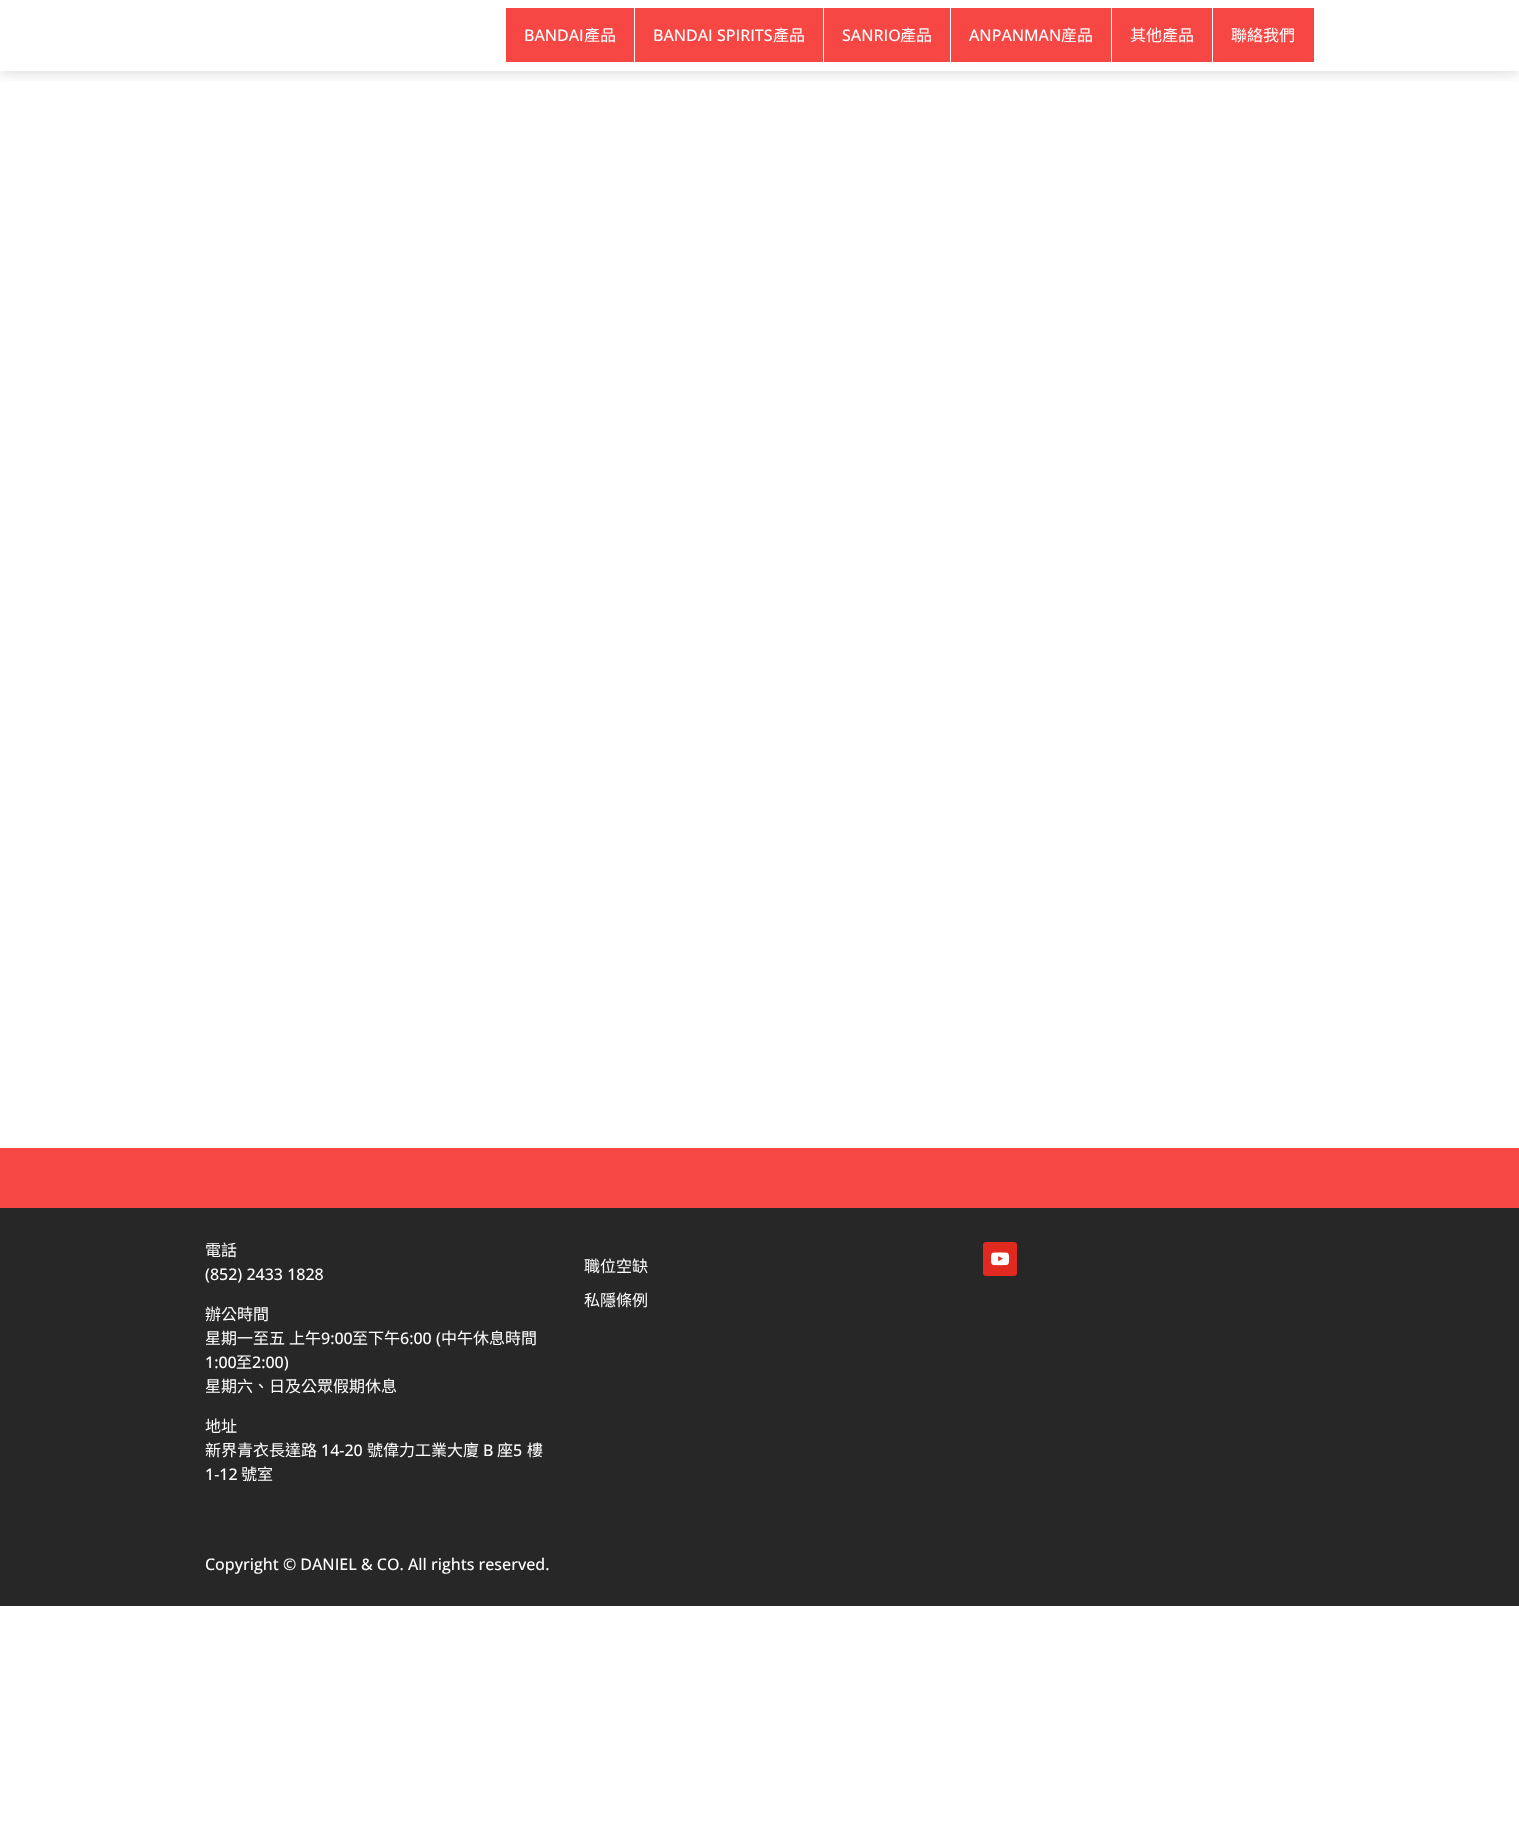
<!DOCTYPE html>
<meta charset="utf-8">
<style>body { margin: 0 } canvas { display: block }</style>
<canvas id="canvas" width="1519" height="1837"></canvas>
<img id="img1" src="images/1.png" hidden>
<script>
window.onload = function () {
    const canvas = document.getElementById('canvas');
    const context = canvas.getContext('2d');
    context.miterLimit = 4;
    context.fontKerning = 'normal';

    context.fillStyle = 'rgb(255, 255, 255)';
    context.fillRect(0, 0, 1519, 1837);
    context.save();
    context.beginPath();
    context.rect(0, 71, 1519, 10);
    context.clip();
    context.fillStyle = 'rgba(0, 0, 0, 0.18)';
    context.filter = 'blur(8px)';
    context.beginPath();
    context.rect(0, 0, 1519, 71);
    context.fill();
    context.filter = 'none';
    context.restore();
    context.fillStyle = 'rgb(246, 71, 68)';
    context.fillRect(506, 8, 128, 54);
    context.fillRect(635, 8, 188, 54);
    context.fillRect(824, 8, 126, 54);
    context.fillRect(951, 8, 160, 54);
    context.fillRect(1112, 8, 100, 54);
    context.fillRect(1213, 8, 101, 54);
    context.fillRect(0, 1148, 1519, 60);
    context.fillStyle = 'rgb(39, 39, 39)';
    context.fillRect(0, 1208, 1519, 398);
    context.fillStyle = 'rgb(224, 42, 32)';
    context.beginPath();
    context.roundRect(983, 1242, 34, 34, 3);
    context.fill();
    context.drawImage(document.getElementById('img1'), 991, 1252, 19, 14);
    context.font = '500 16px Open Sans';
    context.fillStyle = 'rgb(255, 255, 255)';
    context.fillText('BANDAI', 524, 41);
    context.font = '16px Noto Sans CJK TC';
    context.fillText('產品', 584, 41);
    context.font = '500 16px Open Sans';
    context.fillText('BANDAI SPIRITS', 653, 41);
    context.font = '16px Noto Sans CJK TC';
    context.fillText('產品', 773, 41);
    context.font = '500 16px Open Sans';
    context.fillText('SANRIO', 842, 41);
    context.font = '16px Noto Sans CJK TC';
    context.fillText('產品', 900, 41);
    context.font = '500 16px Open Sans';
    context.fillText('ANPANMAN', 969, 41);
    context.font = '16px Noto Sans CJK TC';
    context.fillText('産品', 1061, 41);
    context.fillText('其他產品', 1130, 41);
    context.fillText('聯絡我們', 1231, 41);
    context.fillText('電話', 205, 1256);
    context.font = '500 16px Open Sans';
    context.fillText('(852) 2433 1828', 205, 1280);
    context.font = '16px Noto Sans CJK TC';
    context.fillText('辦公時間', 205, 1320);
    context.fillText('星期一至五', 205, 1344);
    context.fillText('上午', 289, 1344);
    context.font = '500 16px Open Sans';
    context.fillText('9:00', 321, 1344);
    context.font = '16px Noto Sans CJK TC';
    context.fillText('至下午', 352, 1344);
    context.font = '500 16px Open Sans';
    context.fillText('6:00 (', 400, 1344);
    context.font = '16px Noto Sans CJK TC';
    context.fillText('中午休息時間', 441, 1344);
    context.font = '500 16px Open Sans';
    context.fillText('1:00', 205, 1368);
    context.font = '16px Noto Sans CJK TC';
    context.fillText('至', 236, 1368);
    context.font = '500 16px Open Sans';
    context.fillText('2:00)', 252, 1368);
    context.font = '16px Noto Sans CJK TC';
    context.fillText('星期六、日及公眾假期休息', 205, 1392);
    context.fillText('地址', 205, 1432);
    context.fillText('新界青衣長達路', 205, 1456);
    context.font = '500 16px Open Sans';
    context.fillText('14-20', 321, 1456);
    context.font = '16px Noto Sans CJK TC';
    context.fillText('號偉力工業大廈', 367, 1456);
    context.font = '500 16px Open Sans';
    context.fillText('B', 483, 1456);
    context.font = '16px Noto Sans CJK TC';
    context.fillText('座', 497, 1456);
    context.font = '500 16px Open Sans';
    context.fillText('5', 513, 1456);
    context.font = '16px Noto Sans CJK TC';
    context.fillText('樓', 527, 1456);
    context.font = '500 16px Open Sans';
    context.fillText('1-12', 205, 1480);
    context.font = '16px Noto Sans CJK TC';
    context.fillText('號室', 241, 1480);
    context.fillText('職位空缺', 584, 1272);
    context.fillText('私隱條例', 584, 1306);
    context.font = '500 16px Open Sans';
    context.fillText('Copyright © DANIEL & CO. All rights reserved.', 205, 1570);
};
</script>
